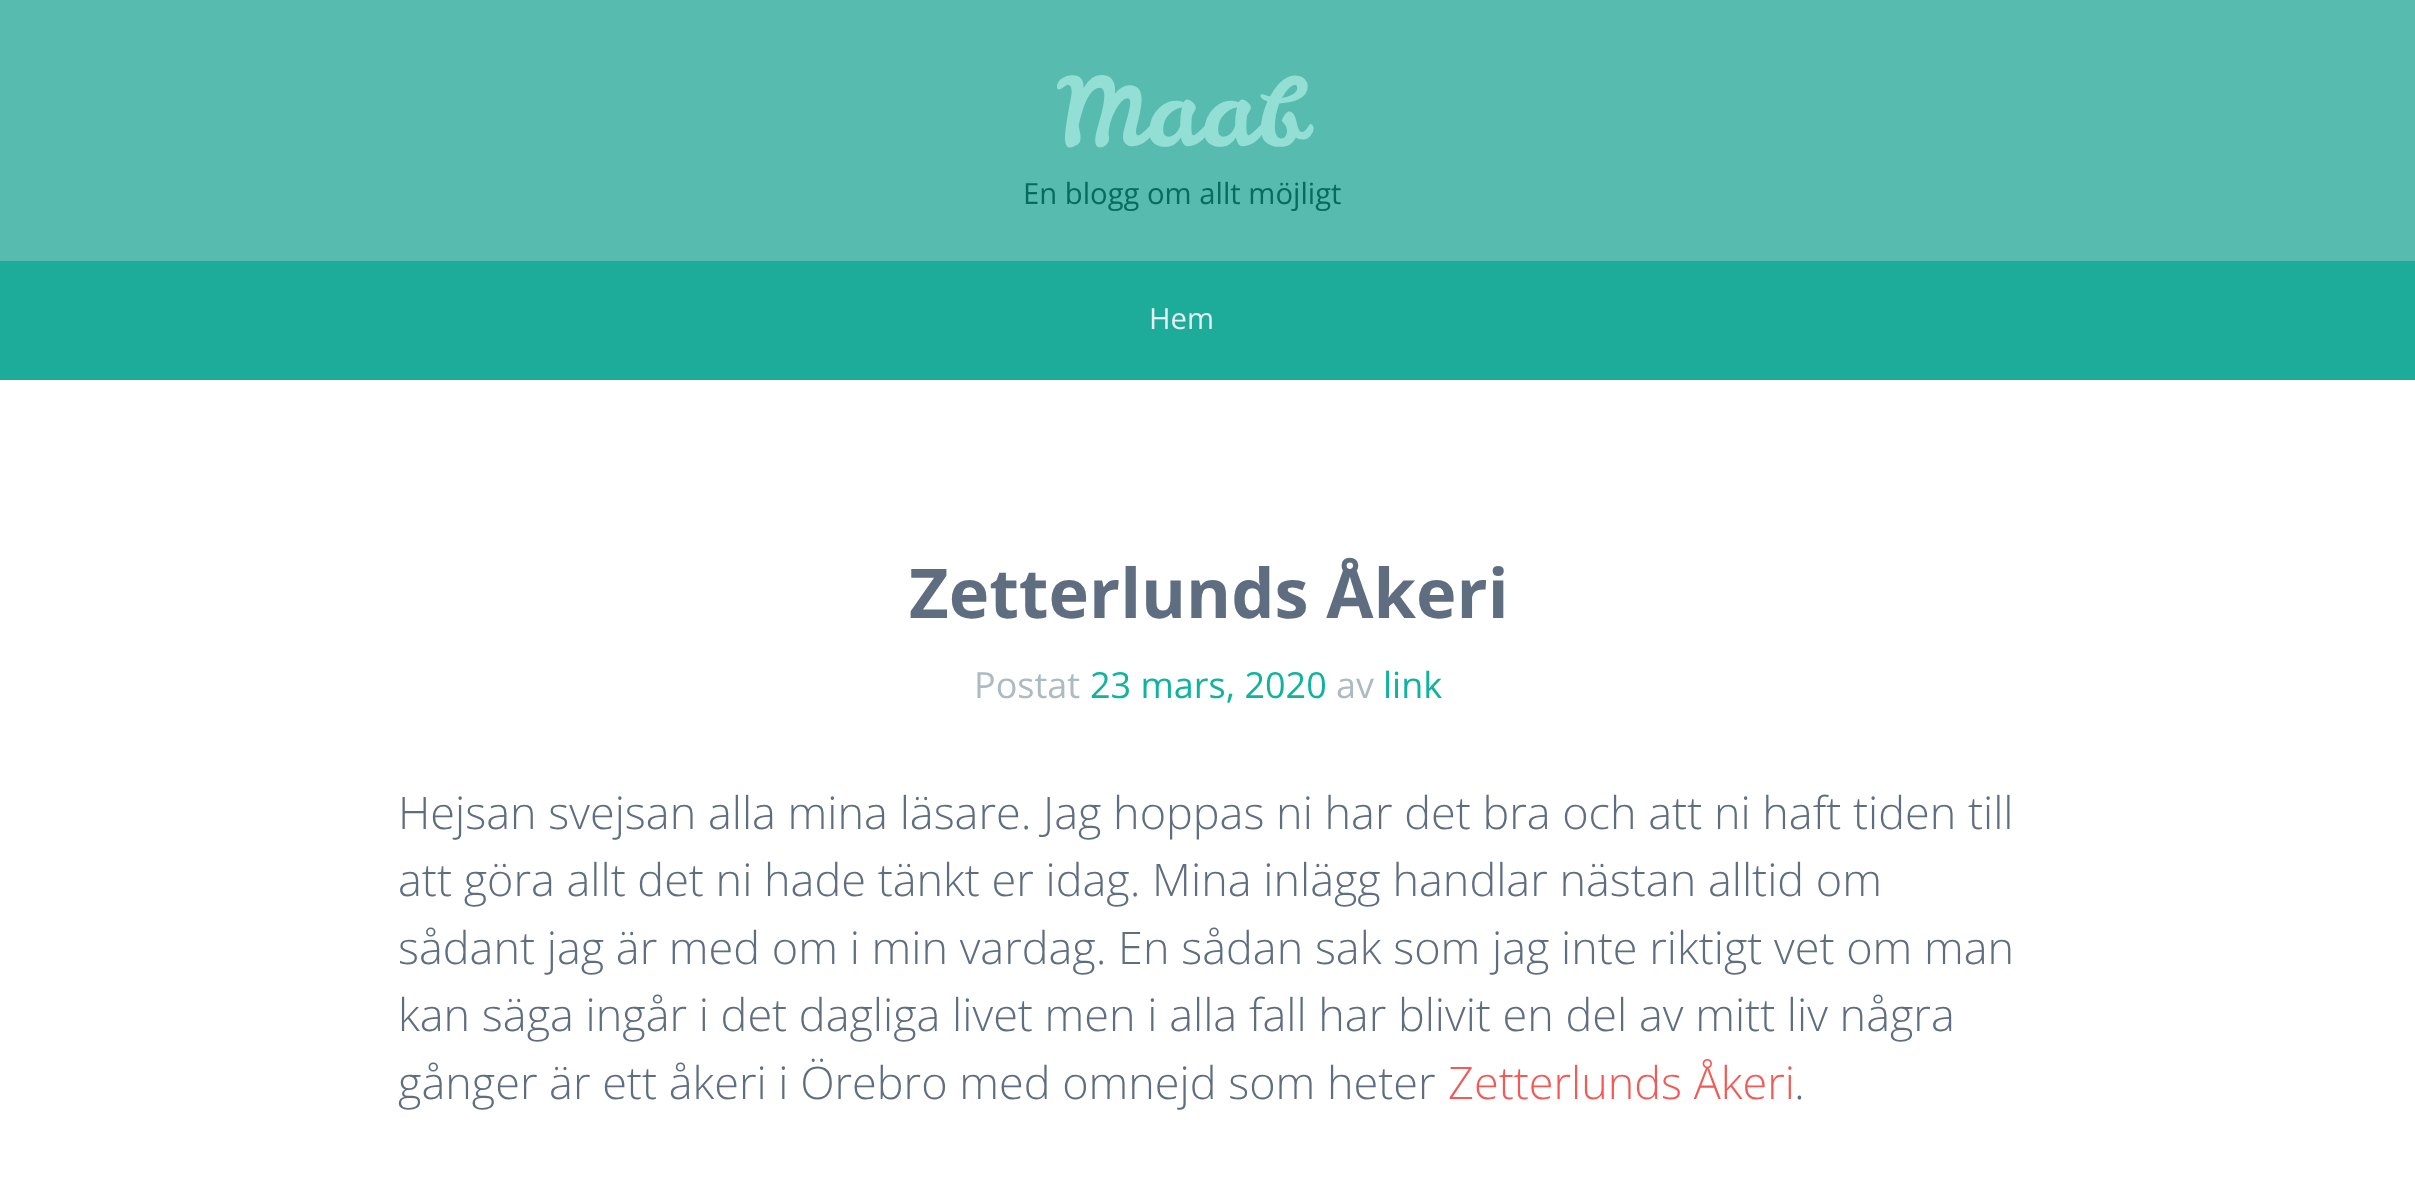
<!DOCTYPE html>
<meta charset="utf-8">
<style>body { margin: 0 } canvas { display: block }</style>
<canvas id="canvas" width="2415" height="1185"></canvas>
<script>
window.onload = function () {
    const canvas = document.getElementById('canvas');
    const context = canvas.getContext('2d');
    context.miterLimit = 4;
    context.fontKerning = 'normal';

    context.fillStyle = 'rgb(255, 255, 255)';
    context.fillRect(0, 0, 2415, 1185);
    context.fillStyle = 'rgb(87, 188, 175)';
    context.fillRect(0, 0, 2415, 261);
    context.fillStyle = 'rgb(29, 172, 154)';
    context.fillRect(0, 261, 2415, 119);
    context.font = '94.5px Leckerli One';
    context.fillStyle = 'rgb(147, 223, 213)';
    context.fillText('Maab', 1057, 146);
    context.font = '29.25px Open Sans';
    context.fillStyle = 'rgb(10, 106, 94)';
    context.fillText('En blogg om allt möjligt', 1023, 204);
    context.fillStyle = 'rgb(234, 237, 241)';
    context.fillText('Hem', 1149, 329);
    context.font = 'bold 68.5px Open Sans';
    context.fillStyle = 'rgb(95, 109, 128)';
    context.fillText('Zetterlunds Åkeri', 909, 618);
    context.font = '36px Open Sans';
    context.fillStyle = 'rgb(171, 187, 192)';
    context.fillText('Postat', 974, 698);
    context.fillStyle = 'rgb(15, 179, 158)';
    context.fillText('23 mars, 2020', 1090, 698);
    context.fillStyle = 'rgb(171, 187, 192)';
    context.fillText('av', 1336, 698);
    context.fillStyle = 'rgb(15, 179, 158)';
    context.fillText('link', 1383, 698);
    context.font = '300 45px Open Sans';
    context.fillStyle = 'rgb(95, 109, 128)';
    context.fillText('Hejsan svejsan alla mina läsare. Jag hoppas ni har det bra och att ni haft tiden till', 398, 829);
    context.fillText('att göra allt det ni hade tänkt er idag. Mina inlägg handlar nästan alltid om', 398, 896);
    context.fillText('sådant jag är med om i min vardag. En sådan sak som jag inte riktigt vet om man', 398, 964);
    context.fillText('kan säga ingår i det dagliga livet men i alla fall har blivit en del av mitt liv några', 398, 1031);
    context.fillText('gånger är ett åkeri i Örebro med omnejd som heter', 398, 1099);
    context.fillStyle = 'rgb(243, 89, 85)';
    context.fillText('Zetterlunds Åkeri', 1448, 1099);
    context.fillStyle = 'rgb(95, 109, 128)';
    context.fillText('.', 1794, 1099);
};
</script>
